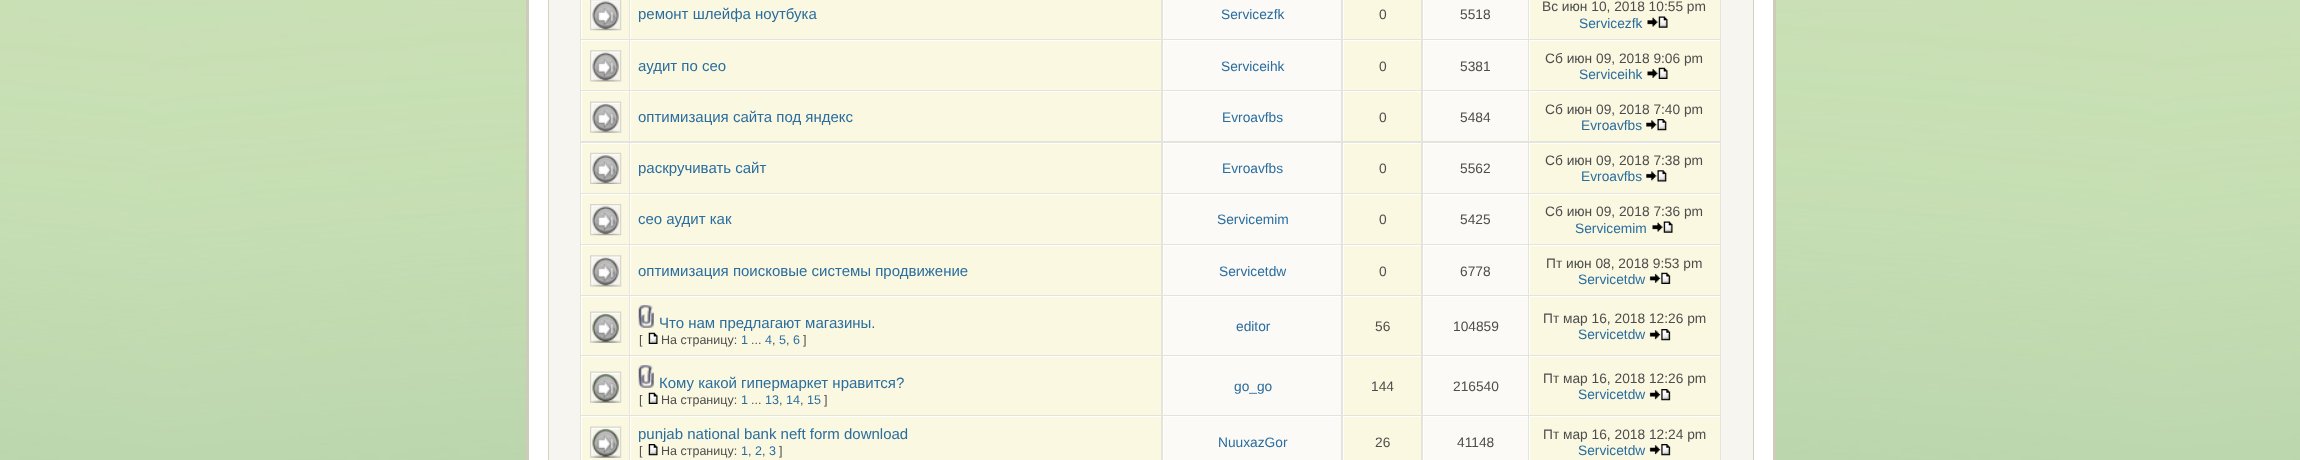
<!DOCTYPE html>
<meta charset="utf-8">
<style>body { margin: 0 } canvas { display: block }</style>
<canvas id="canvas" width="2300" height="460"></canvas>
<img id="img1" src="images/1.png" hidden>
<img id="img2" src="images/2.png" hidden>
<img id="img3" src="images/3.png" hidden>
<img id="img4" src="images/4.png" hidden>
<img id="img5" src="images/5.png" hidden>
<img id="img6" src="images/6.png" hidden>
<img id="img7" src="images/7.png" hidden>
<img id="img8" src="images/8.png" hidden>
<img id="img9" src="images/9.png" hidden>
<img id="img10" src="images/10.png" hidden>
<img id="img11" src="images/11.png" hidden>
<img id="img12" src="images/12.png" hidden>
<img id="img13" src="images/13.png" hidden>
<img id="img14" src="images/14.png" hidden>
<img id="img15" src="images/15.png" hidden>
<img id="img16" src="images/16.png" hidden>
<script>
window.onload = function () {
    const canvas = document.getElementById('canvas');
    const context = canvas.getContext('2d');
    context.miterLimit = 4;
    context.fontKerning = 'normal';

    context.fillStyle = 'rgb(255, 255, 255)';
    context.fillRect(0, 0, 2300, 460);
    context.drawImage(document.getElementById('img1'), 0, 0, 2300, 460);
    context.fillRect(529, 0, 1244, 460);
    context.fillStyle = 'rgb(206, 203, 187)';
    context.fillRect(1773, 0, 3, 460);
    context.fillRect(526, 0, 3, 460);
    context.fillStyle = 'rgb(246, 245, 240)';
    context.beginPath();
    context.rect(548.5, -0.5, 1205, 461);
    context.fill();
    context.strokeStyle = 'rgb(213, 209, 190)';
    context.stroke();
    context.fillStyle = 'rgb(229, 228, 219)';
    context.fillRect(580, 0, 1141, 460);
    context.fillStyle = 'rgb(251, 248, 225)';
    context.fillRect(582, 0, 47, 39);
    context.fillStyle = 'rgb(255, 255, 255)';
    context.fillRect(581, 0, 1, 39);
    context.drawImage(document.getElementById('img2'), 590, 0, 32, 31);
    context.fillStyle = 'rgb(251, 248, 225)';
    context.fillRect(631, 0, 530, 39);
    context.fillStyle = 'rgb(255, 255, 255)';
    context.fillRect(630, 0, 1, 39);
    context.fillStyle = 'rgb(251, 250, 246)';
    context.fillRect(1164, 0, 177, 39);
    context.fillStyle = 'rgb(255, 255, 255)';
    context.fillRect(1163, 0, 1, 39);
    context.fillStyle = 'rgb(251, 248, 225)';
    context.fillRect(1344, 0, 77, 39);
    context.fillStyle = 'rgb(255, 255, 255)';
    context.fillRect(1343, 0, 1, 39);
    context.fillStyle = 'rgb(251, 250, 246)';
    context.fillRect(1424, 0, 104, 39);
    context.fillStyle = 'rgb(255, 255, 255)';
    context.fillRect(1423, 0, 1, 39);
    context.fillStyle = 'rgb(251, 248, 225)';
    context.fillRect(1530, 0, 190, 39);
    context.fillStyle = 'rgb(255, 255, 255)';
    context.fillRect(1529, 0, 1, 39);
    context.drawImage(document.getElementById('img3'), 1647, 16, 21, 12);
    context.fillStyle = 'rgb(251, 248, 225)';
    context.fillRect(582, 41, 47, 49);
    context.fillStyle = 'rgb(255, 255, 255)';
    context.fillRect(581, 40, 48, 1);
    context.fillRect(581, 40, 1, 50);
    context.drawImage(document.getElementById('img4'), 590, 50, 32, 32);
    context.fillStyle = 'rgb(251, 248, 225)';
    context.fillRect(631, 41, 530, 49);
    context.fillStyle = 'rgb(255, 255, 255)';
    context.fillRect(630, 40, 531, 1);
    context.fillRect(630, 40, 1, 50);
    context.fillStyle = 'rgb(251, 250, 246)';
    context.fillRect(1164, 41, 177, 49);
    context.fillStyle = 'rgb(255, 255, 255)';
    context.fillRect(1163, 40, 178, 1);
    context.fillRect(1163, 40, 1, 50);
    context.fillStyle = 'rgb(251, 248, 225)';
    context.fillRect(1344, 41, 77, 49);
    context.fillStyle = 'rgb(255, 255, 255)';
    context.fillRect(1343, 40, 78, 1);
    context.fillRect(1343, 40, 1, 50);
    context.fillStyle = 'rgb(251, 250, 246)';
    context.fillRect(1424, 41, 104, 49);
    context.fillStyle = 'rgb(255, 255, 255)';
    context.fillRect(1423, 40, 105, 1);
    context.fillRect(1423, 40, 1, 50);
    context.fillStyle = 'rgb(251, 248, 225)';
    context.fillRect(1530, 41, 190, 49);
    context.fillStyle = 'rgb(255, 255, 255)';
    context.fillRect(1529, 40, 191, 1);
    context.fillRect(1529, 40, 1, 50);
    context.drawImage(document.getElementById('img5'), 1647, 67, 21, 12);
    context.fillStyle = 'rgb(251, 248, 225)';
    context.fillRect(582, 92, 47, 49);
    context.fillStyle = 'rgb(255, 255, 255)';
    context.fillRect(581, 91, 48, 1);
    context.fillRect(581, 91, 1, 50);
    context.drawImage(document.getElementById('img6'), 590, 101, 32, 32);
    context.fillStyle = 'rgb(251, 248, 225)';
    context.fillRect(631, 92, 530, 49);
    context.fillStyle = 'rgb(255, 255, 255)';
    context.fillRect(630, 91, 531, 1);
    context.fillRect(630, 91, 1, 50);
    context.fillStyle = 'rgb(251, 250, 246)';
    context.fillRect(1164, 92, 177, 49);
    context.fillStyle = 'rgb(255, 255, 255)';
    context.fillRect(1163, 91, 178, 1);
    context.fillRect(1163, 91, 1, 50);
    context.fillStyle = 'rgb(251, 248, 225)';
    context.fillRect(1344, 92, 77, 49);
    context.fillStyle = 'rgb(255, 255, 255)';
    context.fillRect(1343, 91, 78, 1);
    context.fillRect(1343, 91, 1, 50);
    context.fillStyle = 'rgb(251, 250, 246)';
    context.fillRect(1424, 92, 104, 49);
    context.fillStyle = 'rgb(255, 255, 255)';
    context.fillRect(1423, 91, 105, 1);
    context.fillRect(1423, 91, 1, 50);
    context.fillStyle = 'rgb(251, 248, 225)';
    context.fillRect(1530, 92, 190, 49);
    context.fillStyle = 'rgb(255, 255, 255)';
    context.fillRect(1529, 91, 191, 1);
    context.fillRect(1529, 91, 1, 50);
    context.drawImage(document.getElementById('img7'), 1646, 119, 21, 12);
    context.fillStyle = 'rgb(251, 248, 225)';
    context.fillRect(582, 144, 47, 49);
    context.fillStyle = 'rgb(255, 255, 255)';
    context.fillRect(581, 143, 48, 1);
    context.fillRect(581, 143, 1, 50);
    context.drawImage(document.getElementById('img8'), 590, 152, 32, 32);
    context.fillStyle = 'rgb(251, 248, 225)';
    context.fillRect(631, 144, 530, 49);
    context.fillStyle = 'rgb(255, 255, 255)';
    context.fillRect(630, 143, 531, 1);
    context.fillRect(630, 143, 1, 50);
    context.fillStyle = 'rgb(251, 250, 246)';
    context.fillRect(1164, 144, 177, 49);
    context.fillStyle = 'rgb(255, 255, 255)';
    context.fillRect(1163, 143, 178, 1);
    context.fillRect(1163, 143, 1, 50);
    context.fillStyle = 'rgb(251, 248, 225)';
    context.fillRect(1344, 144, 77, 49);
    context.fillStyle = 'rgb(255, 255, 255)';
    context.fillRect(1343, 143, 78, 1);
    context.fillRect(1343, 143, 1, 50);
    context.fillStyle = 'rgb(251, 250, 246)';
    context.fillRect(1424, 144, 104, 49);
    context.fillStyle = 'rgb(255, 255, 255)';
    context.fillRect(1423, 143, 105, 1);
    context.fillRect(1423, 143, 1, 50);
    context.fillStyle = 'rgb(251, 248, 225)';
    context.fillRect(1530, 144, 190, 49);
    context.fillStyle = 'rgb(255, 255, 255)';
    context.fillRect(1529, 143, 191, 1);
    context.fillRect(1529, 143, 1, 50);
    context.drawImage(document.getElementById('img9'), 1646, 170, 21, 12);
    context.fillStyle = 'rgb(251, 248, 225)';
    context.fillRect(582, 195, 47, 49);
    context.fillStyle = 'rgb(255, 255, 255)';
    context.fillRect(581, 194, 48, 1);
    context.fillRect(581, 194, 1, 50);
    context.drawImage(document.getElementById('img10'), 590, 204, 32, 32);
    context.fillStyle = 'rgb(251, 248, 225)';
    context.fillRect(631, 195, 530, 49);
    context.fillStyle = 'rgb(255, 255, 255)';
    context.fillRect(630, 194, 531, 1);
    context.fillRect(630, 194, 1, 50);
    context.fillStyle = 'rgb(251, 250, 246)';
    context.fillRect(1164, 195, 177, 49);
    context.fillStyle = 'rgb(255, 255, 255)';
    context.fillRect(1163, 194, 178, 1);
    context.fillRect(1163, 194, 1, 50);
    context.fillStyle = 'rgb(251, 248, 225)';
    context.fillRect(1344, 195, 77, 49);
    context.fillStyle = 'rgb(255, 255, 255)';
    context.fillRect(1343, 194, 78, 1);
    context.fillRect(1343, 194, 1, 50);
    context.fillStyle = 'rgb(251, 250, 246)';
    context.fillRect(1424, 195, 104, 49);
    context.fillStyle = 'rgb(255, 255, 255)';
    context.fillRect(1423, 194, 105, 1);
    context.fillRect(1423, 194, 1, 50);
    context.fillStyle = 'rgb(251, 248, 225)';
    context.fillRect(1530, 195, 190, 49);
    context.fillStyle = 'rgb(255, 255, 255)';
    context.fillRect(1529, 194, 191, 1);
    context.fillRect(1529, 194, 1, 50);
    context.drawImage(document.getElementById('img3'), 1652, 221, 21, 12);
    context.fillStyle = 'rgb(251, 248, 225)';
    context.fillRect(582, 246, 47, 49);
    context.fillStyle = 'rgb(255, 255, 255)';
    context.fillRect(581, 245, 48, 1);
    context.fillRect(581, 245, 1, 50);
    context.drawImage(document.getElementById('img4'), 590, 255, 32, 32);
    context.fillStyle = 'rgb(251, 248, 225)';
    context.fillRect(631, 246, 530, 49);
    context.fillStyle = 'rgb(255, 255, 255)';
    context.fillRect(630, 245, 531, 1);
    context.fillRect(630, 245, 1, 50);
    context.fillStyle = 'rgb(251, 250, 246)';
    context.fillRect(1164, 246, 177, 49);
    context.fillStyle = 'rgb(255, 255, 255)';
    context.fillRect(1163, 245, 178, 1);
    context.fillRect(1163, 245, 1, 50);
    context.fillStyle = 'rgb(251, 248, 225)';
    context.fillRect(1344, 246, 77, 49);
    context.fillStyle = 'rgb(255, 255, 255)';
    context.fillRect(1343, 245, 78, 1);
    context.fillRect(1343, 245, 1, 50);
    context.fillStyle = 'rgb(251, 250, 246)';
    context.fillRect(1424, 246, 104, 49);
    context.fillStyle = 'rgb(255, 255, 255)';
    context.fillRect(1423, 245, 105, 1);
    context.fillRect(1423, 245, 1, 50);
    context.fillStyle = 'rgb(251, 248, 225)';
    context.fillRect(1530, 246, 190, 49);
    context.fillStyle = 'rgb(255, 255, 255)';
    context.fillRect(1529, 245, 191, 1);
    context.fillRect(1529, 245, 1, 50);
    context.drawImage(document.getElementById('img11'), 1649, 272, 22, 12);
    context.fillStyle = 'rgb(251, 248, 225)';
    context.fillRect(582, 297, 47, 58);
    context.fillStyle = 'rgb(255, 255, 255)';
    context.fillRect(581, 296, 48, 1);
    context.fillRect(581, 296, 1, 59);
    context.drawImage(document.getElementById('img12'), 590, 311, 32, 32);
    context.fillStyle = 'rgb(251, 248, 225)';
    context.fillRect(631, 297, 530, 58);
    context.fillStyle = 'rgb(255, 255, 255)';
    context.fillRect(630, 296, 531, 1);
    context.fillRect(630, 296, 1, 59);
    context.drawImage(document.getElementById('img13'), 638, 305, 16, 23);
    context.drawImage(document.getElementById('img14'), 648, 332, 10, 12);
    context.fillStyle = 'rgb(251, 250, 246)';
    context.fillRect(1164, 297, 177, 58);
    context.fillStyle = 'rgb(255, 255, 255)';
    context.fillRect(1163, 296, 178, 1);
    context.fillRect(1163, 296, 1, 59);
    context.fillStyle = 'rgb(251, 248, 225)';
    context.fillRect(1344, 297, 77, 58);
    context.fillStyle = 'rgb(255, 255, 255)';
    context.fillRect(1343, 296, 78, 1);
    context.fillRect(1343, 296, 1, 59);
    context.fillStyle = 'rgb(251, 250, 246)';
    context.fillRect(1424, 297, 104, 58);
    context.fillStyle = 'rgb(255, 255, 255)';
    context.fillRect(1423, 296, 105, 1);
    context.fillRect(1423, 296, 1, 59);
    context.fillStyle = 'rgb(251, 248, 225)';
    context.fillRect(1530, 297, 190, 58);
    context.fillStyle = 'rgb(255, 255, 255)';
    context.fillRect(1529, 296, 191, 1);
    context.fillRect(1529, 296, 1, 59);
    context.drawImage(document.getElementById('img15'), 1649, 329, 22, 12);
    context.fillStyle = 'rgb(251, 248, 225)';
    context.fillRect(582, 357, 47, 58);
    context.fillStyle = 'rgb(255, 255, 255)';
    context.fillRect(581, 356, 48, 1);
    context.fillRect(581, 356, 1, 59);
    context.drawImage(document.getElementById('img12'), 590, 371, 32, 32);
    context.fillStyle = 'rgb(251, 248, 225)';
    context.fillRect(631, 357, 530, 58);
    context.fillStyle = 'rgb(255, 255, 255)';
    context.fillRect(630, 356, 531, 1);
    context.fillRect(630, 356, 1, 59);
    context.drawImage(document.getElementById('img13'), 638, 365, 16, 23);
    context.drawImage(document.getElementById('img14'), 648, 392, 10, 12);
    context.fillStyle = 'rgb(251, 250, 246)';
    context.fillRect(1164, 357, 177, 58);
    context.fillStyle = 'rgb(255, 255, 255)';
    context.fillRect(1163, 356, 178, 1);
    context.fillRect(1163, 356, 1, 59);
    context.fillStyle = 'rgb(251, 248, 225)';
    context.fillRect(1344, 357, 77, 58);
    context.fillStyle = 'rgb(255, 255, 255)';
    context.fillRect(1343, 356, 78, 1);
    context.fillRect(1343, 356, 1, 59);
    context.fillStyle = 'rgb(251, 250, 246)';
    context.fillRect(1424, 357, 104, 58);
    context.fillStyle = 'rgb(255, 255, 255)';
    context.fillRect(1423, 356, 105, 1);
    context.fillRect(1423, 356, 1, 59);
    context.fillStyle = 'rgb(251, 248, 225)';
    context.fillRect(1530, 357, 190, 58);
    context.fillStyle = 'rgb(255, 255, 255)';
    context.fillRect(1529, 356, 191, 1);
    context.fillRect(1529, 356, 1, 59);
    context.drawImage(document.getElementById('img15'), 1649, 389, 22, 12);
    context.fillStyle = 'rgb(251, 248, 225)';
    context.fillRect(582, 417, 47, 43);
    context.fillStyle = 'rgb(255, 255, 255)';
    context.fillRect(581, 416, 48, 1);
    context.fillRect(581, 416, 1, 44);
    context.drawImage(document.getElementById('img12'), 590, 426, 32, 32);
    context.fillStyle = 'rgb(251, 248, 225)';
    context.fillRect(631, 417, 530, 43);
    context.fillStyle = 'rgb(255, 255, 255)';
    context.fillRect(630, 416, 531, 1);
    context.fillRect(630, 416, 1, 44);
    context.drawImage(document.getElementById('img16'), 648, 444, 10, 12);
    context.fillStyle = 'rgb(251, 250, 246)';
    context.fillRect(1164, 417, 177, 43);
    context.fillStyle = 'rgb(255, 255, 255)';
    context.fillRect(1163, 416, 178, 1);
    context.fillRect(1163, 416, 1, 44);
    context.fillStyle = 'rgb(251, 248, 225)';
    context.fillRect(1344, 417, 77, 43);
    context.fillStyle = 'rgb(255, 255, 255)';
    context.fillRect(1343, 416, 78, 1);
    context.fillRect(1343, 416, 1, 44);
    context.fillStyle = 'rgb(251, 250, 246)';
    context.fillRect(1424, 417, 104, 43);
    context.fillStyle = 'rgb(255, 255, 255)';
    context.fillRect(1423, 416, 105, 1);
    context.fillRect(1423, 416, 1, 44);
    context.fillStyle = 'rgb(251, 248, 225)';
    context.fillRect(1530, 417, 190, 43);
    context.fillStyle = 'rgb(255, 255, 255)';
    context.fillRect(1529, 416, 191, 1);
    context.fillRect(1529, 416, 1, 44);
    context.drawImage(document.getElementById('img15'), 1649, 444, 22, 12);
    context.font = '15px Liberation Sans';
    context.fillStyle = 'rgb(42, 109, 159)';
    context.fillText('ремонт шлейфа ноутбука', 638, 19);
    context.font = '13.75px Liberation Sans';
    context.fillText('Servicezfk', 1221, 19);
    context.fillStyle = 'rgb(77, 77, 77)';
    context.fillText('0', 1379, 19);
    context.fillText('5518', 1460, 19);
    context.fillText('Вс июн 10, 2018 10:55 pm', 1542, 11);
    context.fillStyle = 'rgb(42, 109, 159)';
    context.fillText('Servicezfk', 1579, 28);
    context.font = '15px Liberation Sans';
    context.fillText('аудит по сео', 638, 71);
    context.font = '13.75px Liberation Sans';
    context.fillText('Serviceihk', 1221, 71);
    context.fillStyle = 'rgb(77, 77, 77)';
    context.fillText('0', 1379, 71);
    context.fillText('5381', 1460, 71);
    context.fillText('Сб июн 09, 2018 9:06 pm', 1545, 63);
    context.fillStyle = 'rgb(42, 109, 159)';
    context.fillText('Serviceihk', 1579, 79);
    context.font = '15px Liberation Sans';
    context.fillText('оптимизация сайта под яндекс', 638, 122);
    context.font = '13.75px Liberation Sans';
    context.fillText('Evroavfbs', 1222, 122);
    context.fillStyle = 'rgb(77, 77, 77)';
    context.fillText('0', 1379, 122);
    context.fillText('5484', 1460, 122);
    context.fillText('Сб июн 09, 2018 7:40 pm', 1545, 114);
    context.fillStyle = 'rgb(42, 109, 159)';
    context.fillText('Evroavfbs', 1581, 130);
    context.font = '15px Liberation Sans';
    context.fillText('раскручивать сайт', 638, 173);
    context.font = '13.75px Liberation Sans';
    context.fillText('Evroavfbs', 1222, 173);
    context.fillStyle = 'rgb(77, 77, 77)';
    context.fillText('0', 1379, 173);
    context.fillText('5562', 1460, 173);
    context.fillText('Сб июн 09, 2018 7:38 pm', 1545, 165);
    context.fillStyle = 'rgb(42, 109, 159)';
    context.fillText('Evroavfbs', 1581, 181);
    context.font = '15px Liberation Sans';
    context.fillText('сео аудит как', 638, 224);
    context.font = '13.75px Liberation Sans';
    context.fillText('Servicemim', 1217, 224);
    context.fillStyle = 'rgb(77, 77, 77)';
    context.fillText('0', 1379, 224);
    context.fillText('5425', 1460, 224);
    context.fillText('Сб июн 09, 2018 7:36 pm', 1545, 216);
    context.fillStyle = 'rgb(42, 109, 159)';
    context.fillText('Servicemim', 1575, 233);
    context.font = '15px Liberation Sans';
    context.fillText('оптимизация поисковые системы продвижение', 638, 276);
    context.font = '13.75px Liberation Sans';
    context.fillText('Servicetdw', 1219, 276);
    context.fillStyle = 'rgb(77, 77, 77)';
    context.fillText('0', 1379, 276);
    context.fillText('6778', 1460, 276);
    context.fillText('Пт июн 08, 2018 9:53 pm', 1546, 268);
    context.fillStyle = 'rgb(42, 109, 159)';
    context.fillText('Servicetdw', 1578, 284);
    context.font = '15px Liberation Sans';
    context.fillText('Что нам предлагают магазины.', 659, 328);
    context.font = '12.5px Liberation Sans';
    context.fillStyle = 'rgb(77, 77, 77)';
    context.fillText('[', 639, 344);
    context.fillText('На страницу:', 661, 344);
    context.fillStyle = 'rgb(42, 109, 159)';
    context.fillText('1', 741, 344);
    context.fillStyle = 'rgb(77, 77, 77)';
    context.fillText('...', 751, 344);
    context.fillStyle = 'rgb(42, 109, 159)';
    context.fillText('4', 765, 344);
    context.fillStyle = 'rgb(77, 77, 77)';
    context.fillText(',', 772, 344);
    context.fillStyle = 'rgb(42, 109, 159)';
    context.fillText('5', 779, 344);
    context.fillStyle = 'rgb(77, 77, 77)';
    context.fillText(',', 786, 344);
    context.fillStyle = 'rgb(42, 109, 159)';
    context.fillText('6', 793, 344);
    context.fillStyle = 'rgb(77, 77, 77)';
    context.fillText(']', 803, 344);
    context.font = '13.75px Liberation Sans';
    context.fillStyle = 'rgb(42, 109, 159)';
    context.fillText('editor', 1236, 331);
    context.fillStyle = 'rgb(77, 77, 77)';
    context.fillText('56', 1375, 331);
    context.fillText('104859', 1453, 331);
    context.fillText('Пт мар 16, 2018 12:26 pm', 1543, 323);
    context.fillStyle = 'rgb(42, 109, 159)';
    context.fillText('Servicetdw', 1578, 339);
    context.font = '15px Liberation Sans';
    context.fillText('Кому какой гипермаркет нравится?', 659, 388);
    context.font = '12.5px Liberation Sans';
    context.fillStyle = 'rgb(77, 77, 77)';
    context.fillText('[', 639, 404);
    context.fillText('На страницу:', 661, 404);
    context.fillStyle = 'rgb(42, 109, 159)';
    context.fillText('1', 741, 404);
    context.fillStyle = 'rgb(77, 77, 77)';
    context.fillText('...', 751, 404);
    context.fillStyle = 'rgb(42, 109, 159)';
    context.fillText('13', 765, 404);
    context.fillStyle = 'rgb(77, 77, 77)';
    context.fillText(',', 779, 404);
    context.fillStyle = 'rgb(42, 109, 159)';
    context.fillText('14', 786, 404);
    context.fillStyle = 'rgb(77, 77, 77)';
    context.fillText(',', 800, 404);
    context.fillStyle = 'rgb(42, 109, 159)';
    context.fillText('15', 807, 404);
    context.fillStyle = 'rgb(77, 77, 77)';
    context.fillText(']', 824, 404);
    context.font = '13.75px Liberation Sans';
    context.fillStyle = 'rgb(42, 109, 159)';
    context.fillText('go_go', 1234, 391);
    context.fillStyle = 'rgb(77, 77, 77)';
    context.fillText('144', 1371, 391);
    context.fillText('216540', 1453, 391);
    context.fillText('Пт мар 16, 2018 12:26 pm', 1543, 383);
    context.fillStyle = 'rgb(42, 109, 159)';
    context.fillText('Servicetdw', 1578, 399);
    context.font = '15px Liberation Sans';
    context.fillText('punjab national bank neft form download', 638, 439);
    context.font = '12.5px Liberation Sans';
    context.fillStyle = 'rgb(77, 77, 77)';
    context.fillText('[', 639, 455);
    context.fillText('На страницу:', 661, 455);
    context.fillStyle = 'rgb(42, 109, 159)';
    context.fillText('1', 741, 455);
    context.fillStyle = 'rgb(77, 77, 77)';
    context.fillText(',', 748, 455);
    context.fillStyle = 'rgb(42, 109, 159)';
    context.fillText('2', 755, 455);
    context.fillStyle = 'rgb(77, 77, 77)';
    context.fillText(',', 762, 455);
    context.fillStyle = 'rgb(42, 109, 159)';
    context.fillText('3', 769, 455);
    context.fillStyle = 'rgb(77, 77, 77)';
    context.fillText(']', 779, 455);
    context.font = '13.75px Liberation Sans';
    context.fillStyle = 'rgb(42, 109, 159)';
    context.fillText('NuuxazGor', 1218, 447);
    context.fillStyle = 'rgb(77, 77, 77)';
    context.fillText('26', 1375, 447);
    context.fillText('41148', 1457, 447);
    context.fillText('Пт мар 16, 2018 12:24 pm', 1543, 439);
    context.fillStyle = 'rgb(42, 109, 159)';
    context.fillText('Servicetdw', 1578, 455);
};
</script>
